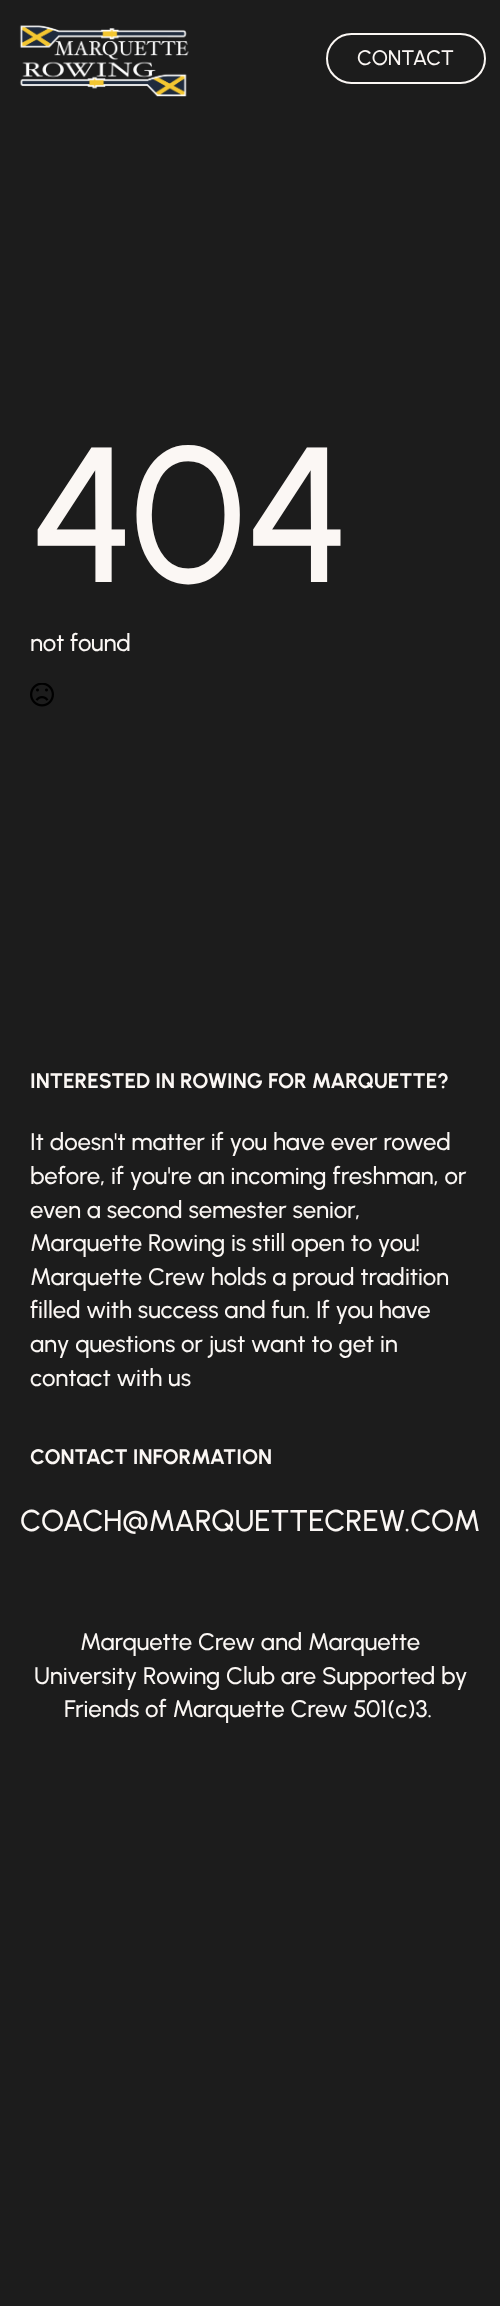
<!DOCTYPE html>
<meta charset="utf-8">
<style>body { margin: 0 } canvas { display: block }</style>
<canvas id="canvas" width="500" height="2306"></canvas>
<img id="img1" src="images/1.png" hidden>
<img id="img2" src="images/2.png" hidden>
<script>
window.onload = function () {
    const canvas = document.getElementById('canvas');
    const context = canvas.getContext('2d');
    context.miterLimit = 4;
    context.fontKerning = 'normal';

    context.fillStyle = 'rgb(28, 28, 28)';
    context.fillRect(0, 0, 500, 2306);
    context.drawImage(document.getElementById('img1'), 19, 25, 170, 72);
    context.beginPath();
    context.roundRect(327, 34, 158, 49, 24.5);
    context.strokeStyle = 'rgb(251, 247, 244)';
    context.lineWidth = 2;
    context.stroke();
    context.drawImage(document.getElementById('img2'), 30, 683, 24, 24);
    context.font = '500 21px Urbanist';
    context.fillStyle = 'rgb(251, 247, 244)';
    context.fillText('CONTACT', 357, 65);
    context.font = '500 192px Urbanist';
    context.fillText('404', 30, 582);
    context.font = '500 24px Urbanist';
    context.fillText('not found', 30, 651);
    context.font = 'bold 21px Urbanist';
    context.fillText('INTERESTED IN ROWING FOR MARQUETTE?', 30, 1088);
    context.font = '500 24px Urbanist';
    context.fillText('It doesn\'t matter if you have ever rowed', 30, 1150);
    context.fillText('before, if you\'re an incoming freshman, or', 30, 1184);
    context.fillText('even a second semester senior,', 30, 1218);
    context.fillText('Marquette Rowing is still open to you!', 30, 1251);
    context.fillText('Marquette Crew holds a proud tradition', 30, 1285);
    context.fillText('filled with success and fun. If you have', 30, 1318);
    context.fillText('any questions or just want to get in', 30, 1352);
    context.fillText('contact with us', 30, 1386);
    context.font = 'bold 21px Urbanist';
    context.fillText('CONTACT INFORMATION', 30, 1464);
    context.font = '500 30px Urbanist';
    context.fillText('COACH@MARQUETTECREW.COM', 20, 1531);
    context.font = '500 24px Urbanist';
    context.fillText('Marquette Crew and Marquette', 80, 1650);
    context.fillText('University Rowing Club are Supported by', 34, 1684);
    context.fillText('Friends of Marquette Crew 501(c)3.', 64, 1717);
};
</script>
